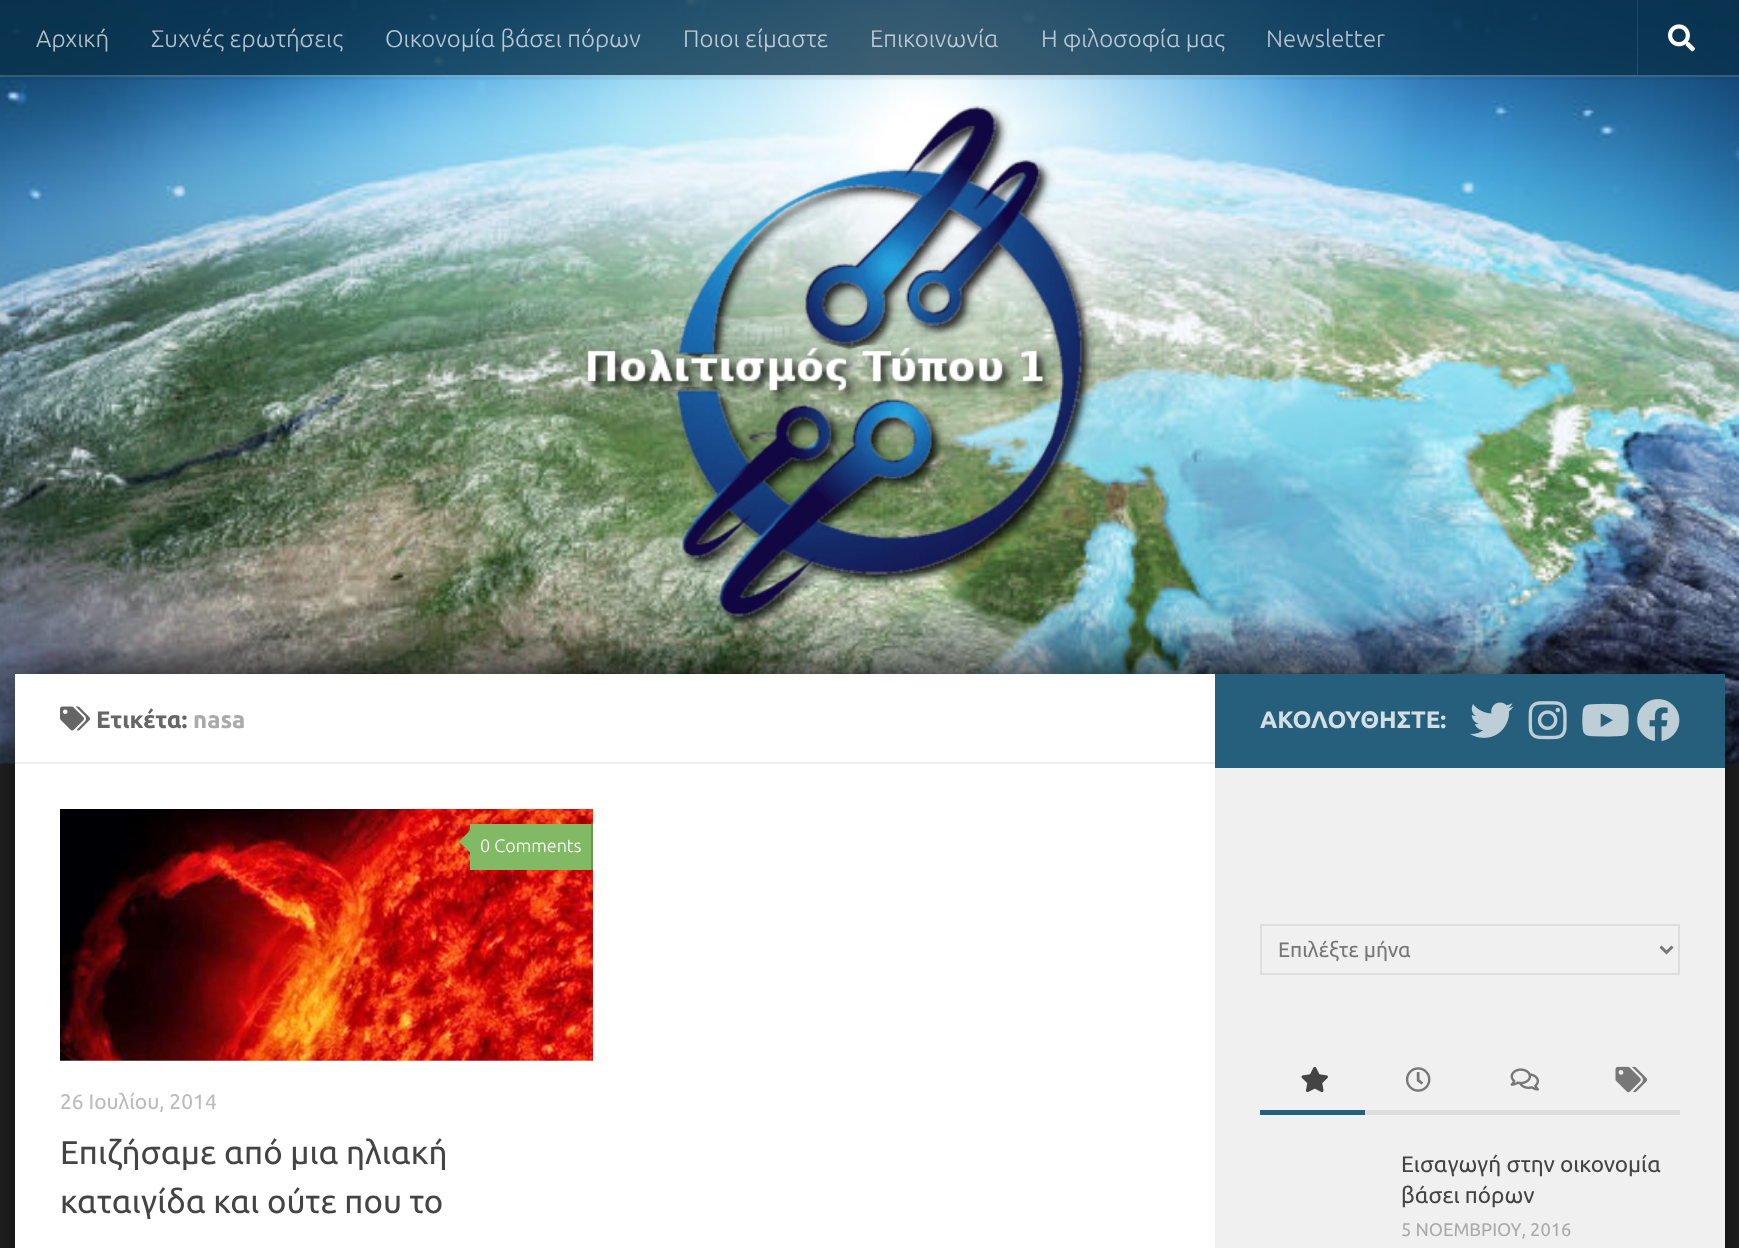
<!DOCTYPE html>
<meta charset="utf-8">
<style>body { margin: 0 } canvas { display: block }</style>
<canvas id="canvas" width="1739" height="1248"></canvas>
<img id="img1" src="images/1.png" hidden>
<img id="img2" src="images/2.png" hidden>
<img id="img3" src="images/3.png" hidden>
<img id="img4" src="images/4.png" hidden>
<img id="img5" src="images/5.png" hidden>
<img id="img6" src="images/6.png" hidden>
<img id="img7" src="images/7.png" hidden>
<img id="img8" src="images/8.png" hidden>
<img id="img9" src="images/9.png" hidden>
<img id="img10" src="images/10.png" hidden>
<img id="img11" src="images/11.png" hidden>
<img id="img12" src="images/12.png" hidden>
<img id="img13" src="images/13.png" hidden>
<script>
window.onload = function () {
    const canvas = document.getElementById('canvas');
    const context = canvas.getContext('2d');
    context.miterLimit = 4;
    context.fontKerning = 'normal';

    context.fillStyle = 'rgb(40, 40, 40)';
    context.fillRect(0, 0, 1739, 1248);
    context.drawImage(document.getElementById('img1'), 0, 0, 1739, 764);
    context.fillStyle = 'rgba(255, 255, 255, 0.15)';
    context.fillRect(0, 75, 1739, 2);
    context.save();
    context.beginPath();
    context.rect(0, 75, 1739, 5);
    context.clip();
    context.fillStyle = 'rgba(0, 0, 0, 0.2)';
    context.filter = 'blur(4px)';
    context.beginPath();
    context.rect(0, 0, 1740, 75);
    context.fill();
    context.filter = 'none';
    context.restore();
    context.fillStyle = 'rgba(8, 48, 72, 0.77)';
    context.fillRect(0, 0, 1739, 75);
    context.fillStyle = 'rgba(255, 255, 255, 0.1)';
    context.fillRect(1637, 0, 1, 75);
    context.drawImage(document.getElementById('img2'), 1668, 24, 27, 28);
    context.drawImage(document.getElementById('img3'), 585, 105, 510, 524);
    context.fillStyle = 'rgb(0, 0, 0)';
    context.filter = 'blur(34.5px)';
    context.beginPath();
    context.rect(23, 672, 1695, 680);
    context.fill();
    context.filter = 'none';
    context.fillStyle = 'rgb(255, 255, 255)';
    context.fillRect(15, 674, 1200, 574);
    context.fillStyle = 'rgb(238, 238, 238)';
    context.fillRect(15, 762, 1200, 2);
    context.drawImage(document.getElementById('img4'), 60, 706, 30, 25);
    context.drawImage(document.getElementById('img5'), 60, 809, 533, 252);
    context.fillStyle = 'rgb(130, 185, 101)';
    context.fillRect(470, 824, 121, 46);
    context.fillStyle = 'rgb(104, 148, 81)';
    context.fillRect(591, 824, 2, 46);
    context.fillStyle = 'rgb(130, 185, 101)';
    context.beginPath();
    context.moveTo(472.5, 828);
    context.lineTo(472.5, 855);
    context.lineTo(459, 841.5);
    context.closePath();
    context.fill();
    context.fillStyle = 'rgb(37, 95, 124)';
    context.fillRect(1215, 674, 510, 94);
    context.drawImage(document.getElementById('img6'), 1470, 702, 44, 36);
    context.drawImage(document.getElementById('img7'), 1528, 701, 39, 39);
    context.drawImage(document.getElementById('img8'), 1582, 703, 47, 34);
    context.drawImage(document.getElementById('img9'), 1637, 699, 43, 42);
    context.fillStyle = 'rgb(240, 240, 240)';
    context.fillRect(1215, 768, 510, 480);
    context.strokeStyle = 'rgb(221, 221, 221)';
    context.lineWidth = 2;
    context.strokeRect(1261, 925, 418, 49);
    context.beginPath();
    context.moveTo(1660.5, 946.5);
    context.lineTo(1666.5, 952.5);
    context.lineTo(1672.5, 946.5);
    context.strokeStyle = 'rgb(119, 119, 119)';
    context.lineWidth = 3;
    context.stroke();
    context.fillStyle = 'rgb(221, 221, 221)';
    context.fillRect(1365, 1110, 315, 5);
    context.fillStyle = 'rgb(37, 95, 124)';
    context.fillRect(1260, 1110, 105, 5);
    context.drawImage(document.getElementById('img10'), 1301, 1066, 27, 27);
    context.drawImage(document.getElementById('img11'), 1405, 1067, 26, 25);
    context.drawImage(document.getElementById('img12'), 1510, 1068, 29, 23);
    context.drawImage(document.getElementById('img13'), 1615, 1066, 33, 27);
    context.font = '300 24px Ubuntu';
    context.fillStyle = 'rgb(182, 194, 203)';
    context.fillText('Αρχική', 36, 47);
    context.fillText('Συχνές ερωτήσεις', 151, 47);
    context.fillStyle = 'rgb(186, 201, 210)';
    context.fillText('Οικονομία βάσει πόρων', 385, 47);
    context.fillStyle = 'rgb(192, 204, 212)';
    context.fillText('Ποιοι είμαστε', 683, 47);
    context.fillText('Επικοινωνία', 870, 47);
    context.fillStyle = 'rgb(186, 201, 210)';
    context.fillText('Η φιλοσοφία μας', 1041, 47);
    context.fillStyle = 'rgb(182, 194, 203)';
    context.fillText('Newsletter', 1266, 47);
    context.font = 'bold 24px Ubuntu';
    context.fillStyle = 'rgb(102, 102, 102)';
    context.fillText('Ετικέτα:', 96, 728);
    context.fillStyle = 'rgb(170, 170, 170)';
    context.fillText('nasa', 193, 728);
    context.font = '300 18px Ubuntu';
    context.fillStyle = 'rgb(255, 255, 255)';
    context.fillText('0 Comments', 480, 852);
    context.font = '21px Ubuntu';
    context.fillStyle = 'rgb(187, 187, 187)';
    context.fillText('26 Ιουλίου, 2014', 60, 1109);
    context.font = '33px Ubuntu';
    context.fillStyle = 'rgb(68, 68, 68)';
    context.fillText('Επιζήσαμε από μια ηλιακή', 60, 1164);
    context.fillText('καταιγίδα και ούτε που το', 60, 1213);
    context.font = 'bold 24px Ubuntu';
    context.fillStyle = 'rgb(211, 223, 229)';
    context.fillText('ΑΚΟΛΟΥΘΗΣΤΕ:', 1260, 728);
    context.font = '21px Ubuntu';
    context.fillStyle = 'rgb(119, 119, 119)';
    context.fillText('Επιλέξτε μήνα', 1278, 957);
    context.font = '22.5px Ubuntu';
    context.fillStyle = 'rgb(68, 68, 68)';
    context.fillText('Εισαγωγή στην οικονομία', 1401, 1172);
    context.fillText('βάσει πόρων', 1401, 1203);
    context.font = '18.25px Ubuntu';
    context.fillStyle = 'rgb(170, 170, 170)';
    context.fillText('5 ΝΟΕΜΒΡΙΟΥ, 2016', 1401, 1236);
};
</script>
